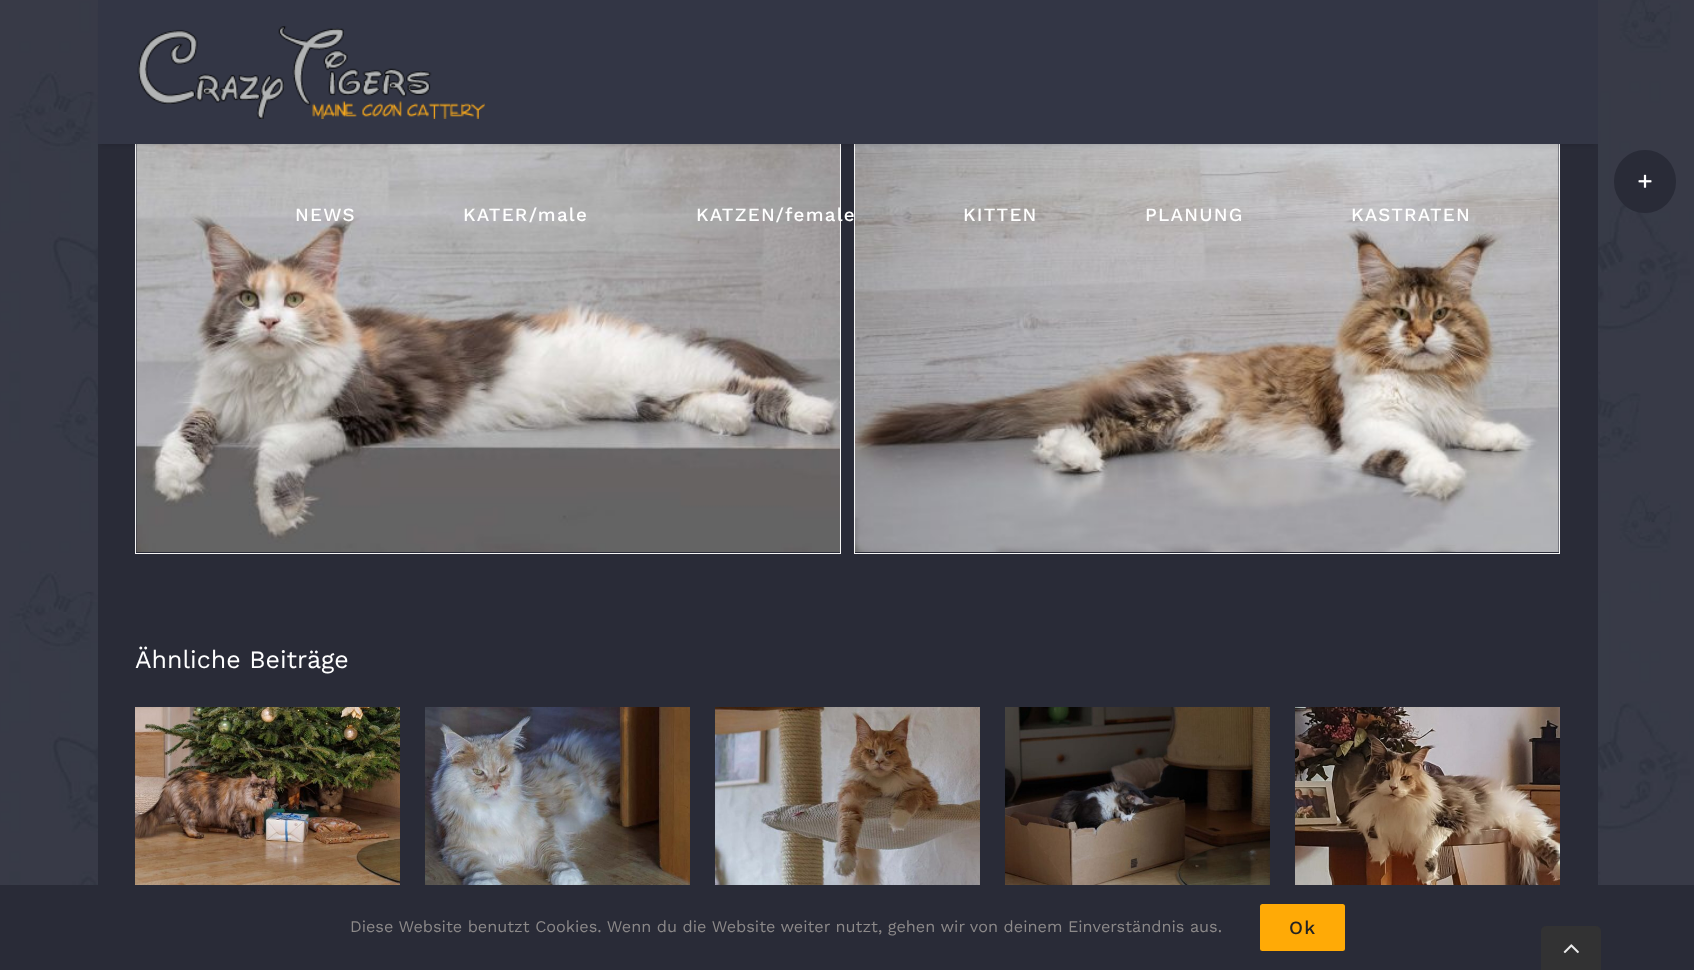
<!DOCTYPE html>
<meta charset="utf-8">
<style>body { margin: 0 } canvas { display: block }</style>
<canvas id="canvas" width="1694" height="970"></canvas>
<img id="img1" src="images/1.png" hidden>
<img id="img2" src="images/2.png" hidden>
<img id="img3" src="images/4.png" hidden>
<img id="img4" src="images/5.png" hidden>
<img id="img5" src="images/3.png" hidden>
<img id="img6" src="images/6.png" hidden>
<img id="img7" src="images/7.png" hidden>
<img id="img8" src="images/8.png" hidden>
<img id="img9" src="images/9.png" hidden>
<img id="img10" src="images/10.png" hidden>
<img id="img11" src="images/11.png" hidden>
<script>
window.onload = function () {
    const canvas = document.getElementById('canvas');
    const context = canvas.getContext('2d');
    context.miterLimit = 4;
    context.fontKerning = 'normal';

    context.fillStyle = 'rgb(255, 255, 255)';
    context.fillRect(0, 0, 1694, 970);
    context.drawImage(document.getElementById('img1'), 0, 0, 1694, 885);
    context.fillStyle = 'rgb(41, 43, 55)';
    context.beginPath();
    context.roundRect(1614, 150, 62, 63, 31);
    context.fill();
    context.drawImage(document.getElementById('img2'), 1638, 174, 14, 14);
    context.fillRect(98, 144, 1500, 741);
    context.strokeStyle = 'rgb(246, 246, 246)';
    context.strokeRect(135.5, 111.5, 705, 442);
    context.drawImage(document.getElementById('img3'), 136, 144, 704, 408);
    context.strokeRect(854.5, 111.5, 705, 442);
    context.drawImage(document.getElementById('img4'), 855, 144, 704, 408);
    context.fillStyle = 'rgba(0, 0, 0, 0.12)';
    context.filter = 'blur(2px)';
    context.beginPath();
    context.rect(101, 9, 1493, 136);
    context.fill();
    context.filter = 'none';
    context.fillStyle = 'rgb(51, 54, 69)';
    context.fillRect(98, 0, 1500, 144);
    context.drawImage(document.getElementById('img5'), 137, 26, 348, 93);
    context.drawImage(document.getElementById('img6'), 135, 707, 265, 178);
    context.drawImage(document.getElementById('img7'), 425, 707, 265, 178);
    context.drawImage(document.getElementById('img8'), 715, 707, 265, 178);
    context.drawImage(document.getElementById('img9'), 1005, 707, 265, 178);
    context.drawImage(document.getElementById('img10'), 1295, 707, 265, 178);
    context.fillStyle = 'rgb(41, 43, 55)';
    context.fillRect(0, 885, 1694, 85);
    context.fillStyle = 'rgb(255, 170, 6)';
    context.beginPath();
    context.roundRect(1260, 904, 85, 47, 2.5);
    context.fill();
    context.fillStyle = 'rgb(50, 50, 51)';
    context.beginPath();
    context.roundRect(1541, 926, 60, 44, [5, 5, 0, 0]);
    context.fill();
    context.drawImage(document.getElementById('img11'), 1563, 944, 16, 10);
    context.letterSpacing = '1.25px';
    context.font = '500 18.75px Work Sans';
    context.fillStyle = 'rgb(255, 255, 255)';
    context.fillText('NEWS', 295, 221);
    context.fillText('KATER/male', 463, 221);
    context.fillText('KATZEN/female', 696, 221);
    context.fillText('KITTEN', 963, 221);
    context.fillText('PLANUNG', 1145, 221);
    context.fillText('KASTRATEN', 1351, 221);
    context.letterSpacing = '0px';
    context.font = '25px Work Sans';
    context.fillText('Ähnliche Beiträge', 135, 668);
    context.font = '16.25px Work Sans';
    context.fillStyle = 'rgb(140, 137, 137)';
    context.fillText('Diese Website benutzt Cookies. Wenn du die Website weiter nutzt, gehen wir von deinem Einverständnis aus.', 350, 932);
    context.letterSpacing = '1.25px';
    context.font = '500 18.75px Work Sans';
    context.fillStyle = 'rgb(35, 35, 35)';
    context.fillText('Ok', 1289, 934);
};
</script>
